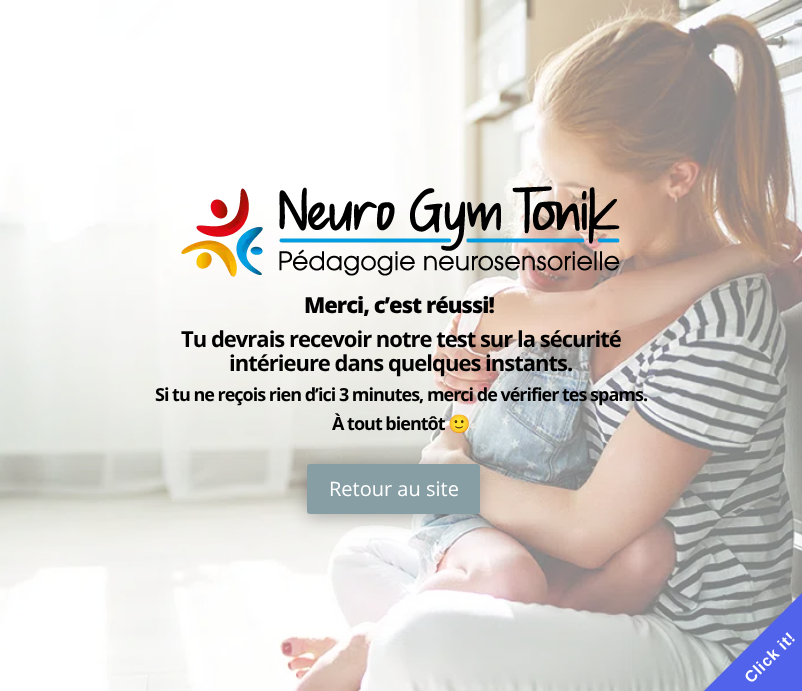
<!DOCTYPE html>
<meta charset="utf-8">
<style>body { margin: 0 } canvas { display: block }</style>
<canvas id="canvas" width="802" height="691"></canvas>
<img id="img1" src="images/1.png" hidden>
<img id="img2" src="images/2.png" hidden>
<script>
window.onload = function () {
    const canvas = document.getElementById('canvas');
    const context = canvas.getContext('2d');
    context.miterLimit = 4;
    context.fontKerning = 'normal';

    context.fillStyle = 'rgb(255, 255, 255)';
    context.fillRect(0, 0, 802, 691);
    context.drawImage(document.getElementById('img1'), 0, 0, 802, 691);
    context.drawImage(document.getElementById('img2'), 181, 186, 439, 91);
    context.fillStyle = 'rgba(0, 0, 0, 0.3)';
    context.filter = 'blur(9px)';
    context.beginPath();
    context.roundRect(307, 466, 173, 50, 3);
    context.fill();
    context.filter = 'none';
    context.fillStyle = 'rgb(134, 158, 164)';
    context.beginPath();
    context.roundRect(307, 464, 173, 50, 3);
    context.fill();
    context.fillStyle = 'rgb(82, 99, 235)';
    context.beginPath();
    context.moveTo(701, 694);
    context.lineTo(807, 588);
    context.bezierCurveTo(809, 586, 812, 586, 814, 588);
    context.lineTo(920, 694);
    context.bezierCurveTo(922, 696, 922, 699, 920, 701);
    context.lineTo(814, 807);
    context.bezierCurveTo(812, 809, 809, 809, 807, 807);
    context.lineTo(701, 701);
    context.bezierCurveTo(699, 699, 699, 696, 701, 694);
    context.closePath();
    context.fill();
    context.letterSpacing = '-1px';
    context.font = '800 22px Open Sans';
    context.fillStyle = 'rgb(0, 0, 0)';
    context.fillText('Merci, c’est réussi!', 304, 313);
    context.font = 'bold 22px Open Sans';
    context.fillText('Tu devrais recevoir notre test sur la sécurité', 181, 347);
    context.fillText('intérieure dans quelques instants.', 229, 371);
    context.font = 'bold 18px Open Sans';
    context.fillText('Si tu ne reçois rien d’ici 3 minutes, merci de vérifier tes spams.', 155, 401);
    context.fillText('À tout bientôt', 332, 430);
    context.font = 'bold 18px Noto Color Emoji';
    context.fillText('🙂', 448, 430);
    context.letterSpacing = '0px';
    context.font = '20px Open Sans';
    context.fillStyle = 'rgb(255, 255, 255)';
    context.fillText('Retour au site', 329, 496);
    context.letterSpacing = '0.75px';
    context.font = 'bold 16px Liberation Sans';
    context.save();
    context.translate(751, 684);
    context.rotate(-45 * Math.PI / 180);
    context.fillText('Click it!', 0, 0);
    context.restore();
};
</script>
